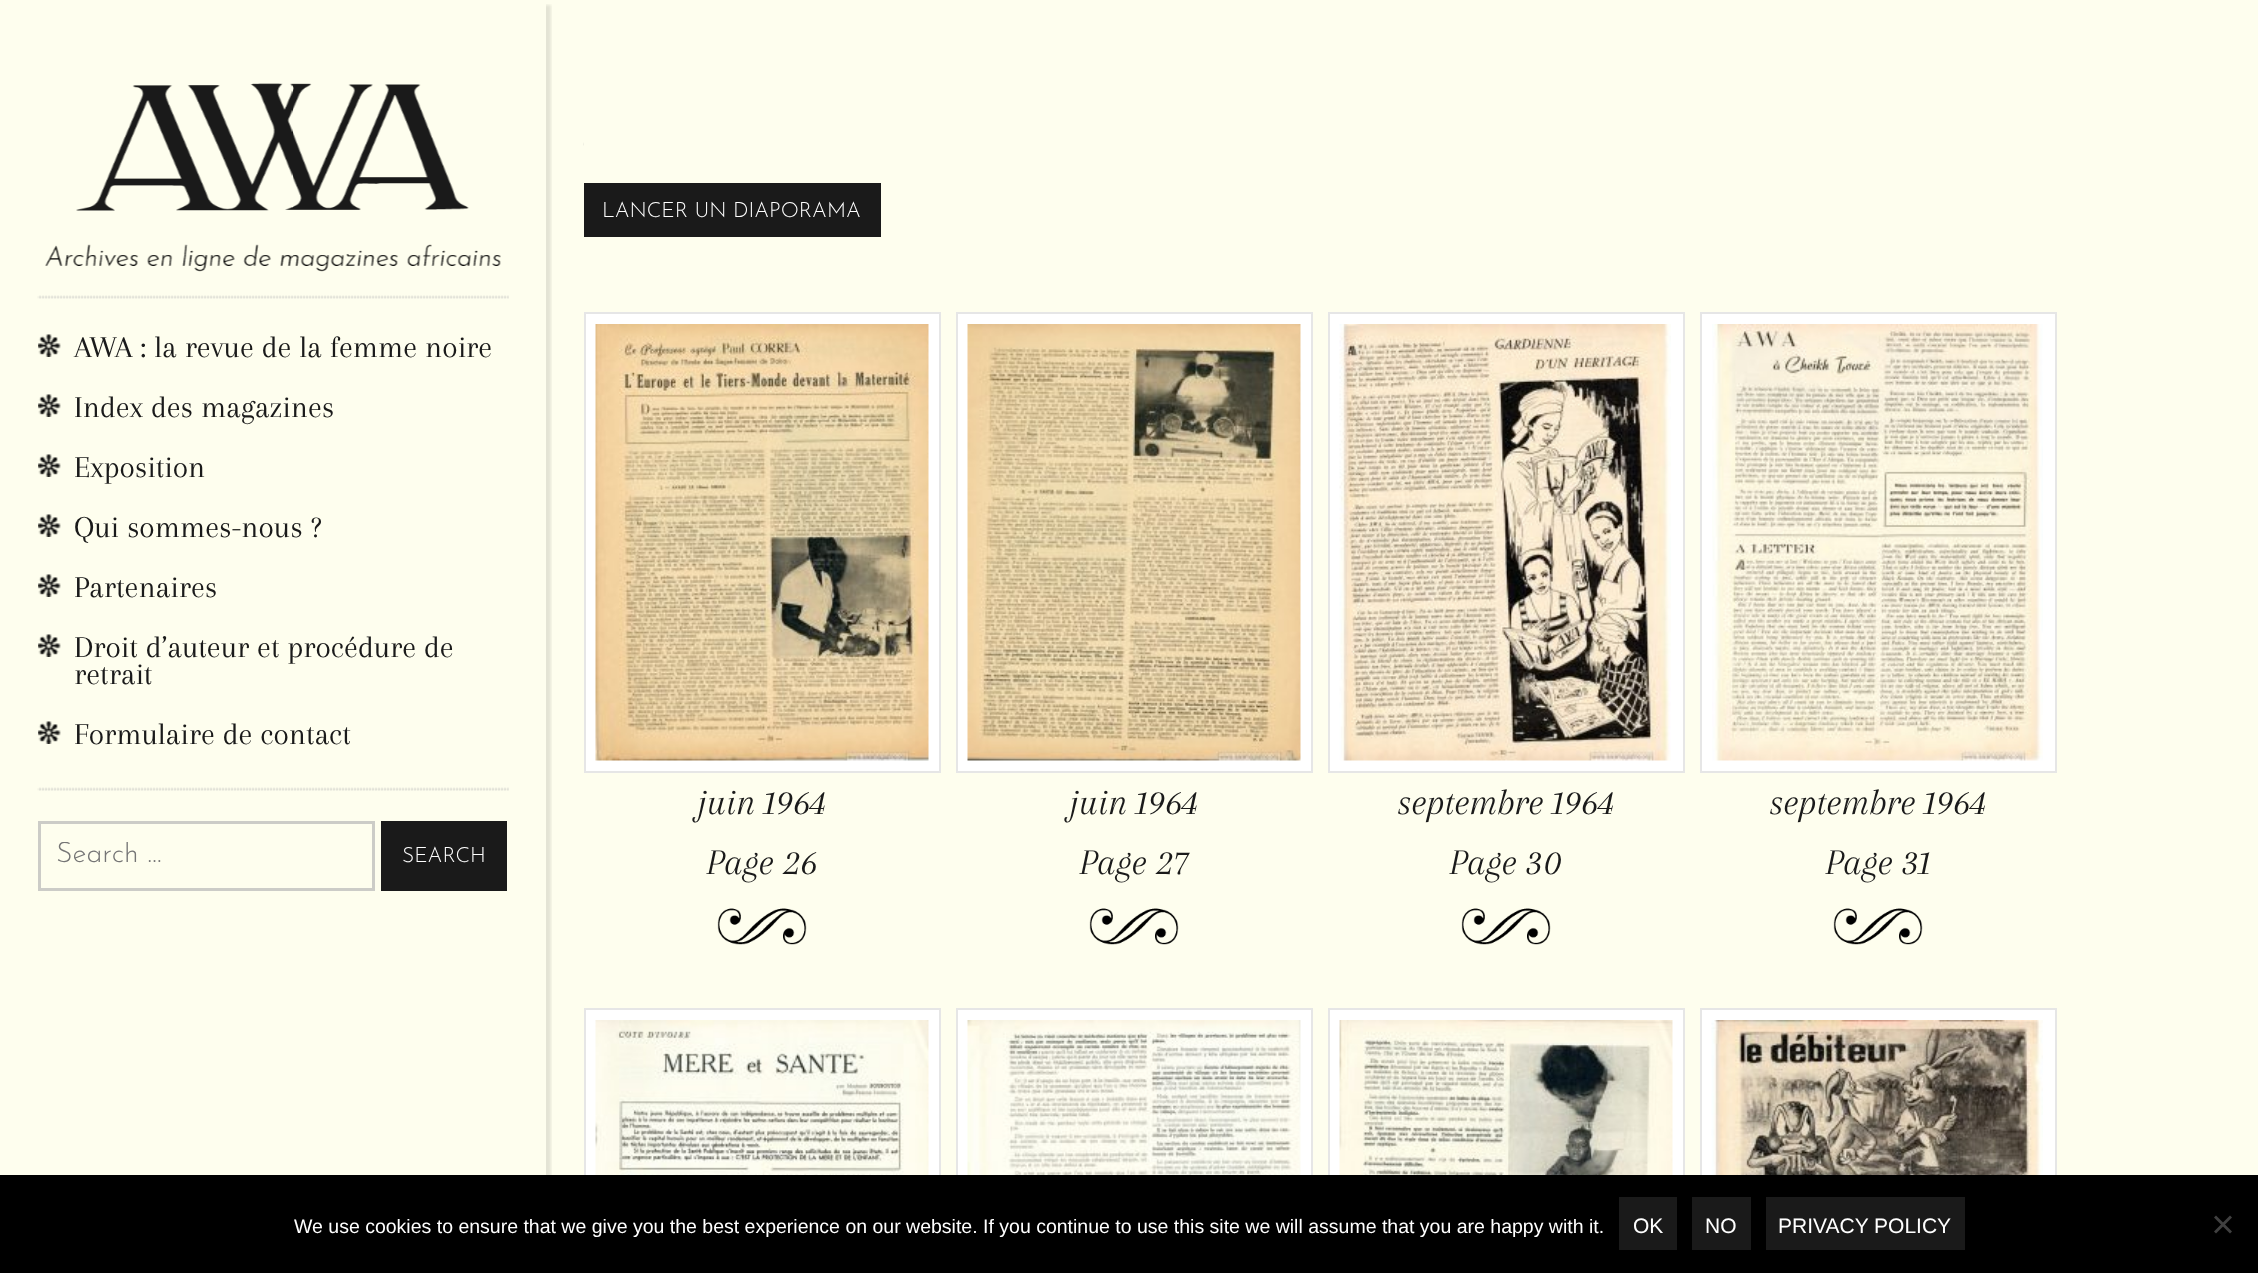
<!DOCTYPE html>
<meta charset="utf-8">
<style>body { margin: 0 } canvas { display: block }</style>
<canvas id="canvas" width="2258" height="1273"></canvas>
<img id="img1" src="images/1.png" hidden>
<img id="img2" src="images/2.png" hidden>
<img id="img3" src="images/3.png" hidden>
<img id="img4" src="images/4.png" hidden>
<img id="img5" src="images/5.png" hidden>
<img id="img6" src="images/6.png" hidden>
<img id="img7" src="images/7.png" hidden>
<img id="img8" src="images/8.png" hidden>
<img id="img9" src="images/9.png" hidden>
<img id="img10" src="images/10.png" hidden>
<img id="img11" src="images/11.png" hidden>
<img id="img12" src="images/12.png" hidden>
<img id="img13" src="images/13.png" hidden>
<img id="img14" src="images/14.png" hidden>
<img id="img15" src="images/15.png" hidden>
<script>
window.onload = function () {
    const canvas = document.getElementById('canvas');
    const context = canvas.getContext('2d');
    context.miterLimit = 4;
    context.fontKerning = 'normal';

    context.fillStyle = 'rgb(254, 254, 238)';
    context.fillRect(0, 0, 2258, 1273);
    context.save();
    context.beginPath();
    context.rect(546, 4, 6, 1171);
    context.clip();
    context.fillStyle = 'rgba(0, 0, 0, 0.1)';
    context.filter = 'blur(1.5px)';
    context.beginPath();
    context.rect(5, 5, 546, 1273);
    context.fill();
    context.filter = 'none';
    context.restore();
    context.drawImage(document.getElementById('img1'), 45, 83, 456, 189);
    context.drawImage(document.getElementById('img2'), 37, 295, 472, 496);
    context.drawImage(document.getElementById('img3'), 38, 334, 23, 23);
    context.drawImage(document.getElementById('img3'), 38, 394, 23, 23);
    context.drawImage(document.getElementById('img3'), 38, 454, 23, 23);
    context.drawImage(document.getElementById('img3'), 38, 514, 23, 23);
    context.drawImage(document.getElementById('img3'), 38, 574, 23, 23);
    context.drawImage(document.getElementById('img3'), 38, 634, 23, 23);
    context.drawImage(document.getElementById('img3'), 38, 721, 23, 23);
    context.strokeStyle = 'rgb(204, 204, 199)';
    context.lineWidth = 3;
    context.strokeRect(39.5, 822.5, 334, 67);
    context.fillStyle = 'rgb(26, 26, 26)';
    context.fillRect(381, 821, 126, 70);
    context.drawImage(document.getElementById('img4'), 583, 142, 1, 4);
    context.fillRect(584, 183, 297, 54);
    context.fillStyle = 'rgb(255, 255, 255)';
    context.beginPath();
    context.rect(585, 313, 355, 459);
    context.fill();
    context.strokeStyle = 'rgb(230, 230, 230)';
    context.lineWidth = 2;
    context.stroke();
    context.drawImage(document.getElementById('img5'), 595, 324, 334, 437);
    context.drawImage(document.getElementById('img6'), 717, 908, 90, 37);
    context.beginPath();
    context.rect(957, 313, 355, 459);
    context.fill();
    context.stroke();
    context.drawImage(document.getElementById('img7'), 967, 324, 334, 437);
    context.drawImage(document.getElementById('img8'), 1089, 908, 90, 37);
    context.beginPath();
    context.rect(1329, 313, 355, 459);
    context.fill();
    context.stroke();
    context.drawImage(document.getElementById('img9'), 1339, 324, 332, 437);
    context.drawImage(document.getElementById('img10'), 1461, 908, 90, 37);
    context.beginPath();
    context.rect(1701, 313, 355, 459);
    context.fill();
    context.stroke();
    context.drawImage(document.getElementById('img11'), 1712, 324, 331, 437);
    context.drawImage(document.getElementById('img8'), 1833, 908, 90, 37);
    context.fillRect(586, 1010, 353, 165);
    context.strokeRect(585, 1009, 355, 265);
    context.drawImage(document.getElementById('img12'), 595, 1020, 334, 155);
    context.fillRect(958, 1010, 353, 165);
    context.strokeRect(957, 1009, 355, 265);
    context.drawImage(document.getElementById('img13'), 967, 1020, 334, 155);
    context.fillRect(1330, 1010, 353, 165);
    context.strokeRect(1329, 1009, 355, 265);
    context.drawImage(document.getElementById('img14'), 1339, 1020, 334, 155);
    context.fillRect(1702, 1010, 353, 165);
    context.strokeRect(1701, 1009, 355, 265);
    context.drawImage(document.getElementById('img15'), 1711, 1020, 332, 155);
    context.fillStyle = 'rgb(0, 0, 0)';
    context.fillRect(0, 1175, 2258, 98);
    context.fillStyle = 'rgb(26, 26, 26)';
    context.fillRect(1619, 1197, 58, 53);
    context.fillRect(1692, 1197, 59, 53);
    context.fillRect(1766, 1197, 199, 53);
    context.fillStyle = 'rgb(64, 64, 64)';
    context.beginPath();
    context.moveTo(2230, 1215.5);
    context.lineTo(2232, 1217.5);
    context.lineTo(2216, 1233.5);
    context.lineTo(2214, 1231.5);
    context.closePath();
    context.fill();
    context.beginPath();
    context.moveTo(2214, 1217.5);
    context.lineTo(2216, 1215.5);
    context.lineTo(2232, 1231.5);
    context.lineTo(2230, 1233.5);
    context.closePath();
    context.fill();
    context.font = '31.5px Arapey';
    context.fillStyle = 'rgb(26, 26, 26)';
    context.fillText('AWA : la revue de la femme noire', 74, 357);
    context.fillText('Index des magazines', 74, 417);
    context.fillText('Exposition', 74, 477);
    context.fillText('Qui sommes-nous ?', 74, 537);
    context.fillText('Partenaires', 74, 597);
    context.fillText('Droit d’auteur et procédure de', 74, 657);
    context.fillText('retrait', 74, 684);
    context.fillText('Formulaire de contact', 74, 744);
    context.save();
    context.beginPath();
    context.rect(56, 842, 276, 28);
    context.clip();
    context.font = '100 28.5px Josefin Sans';
    context.fillStyle = 'rgb(117, 117, 117)';
    context.fillText('Search …', 56, 862);
    context.restore();
    context.font = '100 21px Josefin Sans';
    context.fillStyle = 'rgb(255, 255, 255)';
    context.fillText('SEARCH', 402, 862);
    context.fillText('LANCER UN DIAPORAMA', 602, 217);
    context.font = 'italic 37.5px Arapey';
    context.fillStyle = 'rgb(26, 26, 26)';
    context.fillText('juin 1964', 697, 814);
    context.fillText('Page 26', 706, 874);
    context.fillText('juin 1964', 1069, 814);
    context.fillText('Page 27', 1079, 874);
    context.fillText('septembre 1964', 1397, 814);
    context.fillText('Page 30', 1449, 874);
    context.fillText('septembre 1964', 1769, 814);
    context.fillText('Page 31', 1825, 874);
    context.font = '19.5px Liberation Sans';
    context.fillStyle = 'rgb(255, 255, 255)';
    context.fillText('We use cookies to ensure that we give you the best experience on our website. If you continue to use this site we will assume that you are happy with it.', 294, 1233);
    context.font = '21px Liberation Sans';
    context.fillText('OK', 1633, 1233);
    context.fillText('NO', 1705, 1233);
    context.fillText('PRIVACY POLICY', 1778, 1233);
};
</script>
